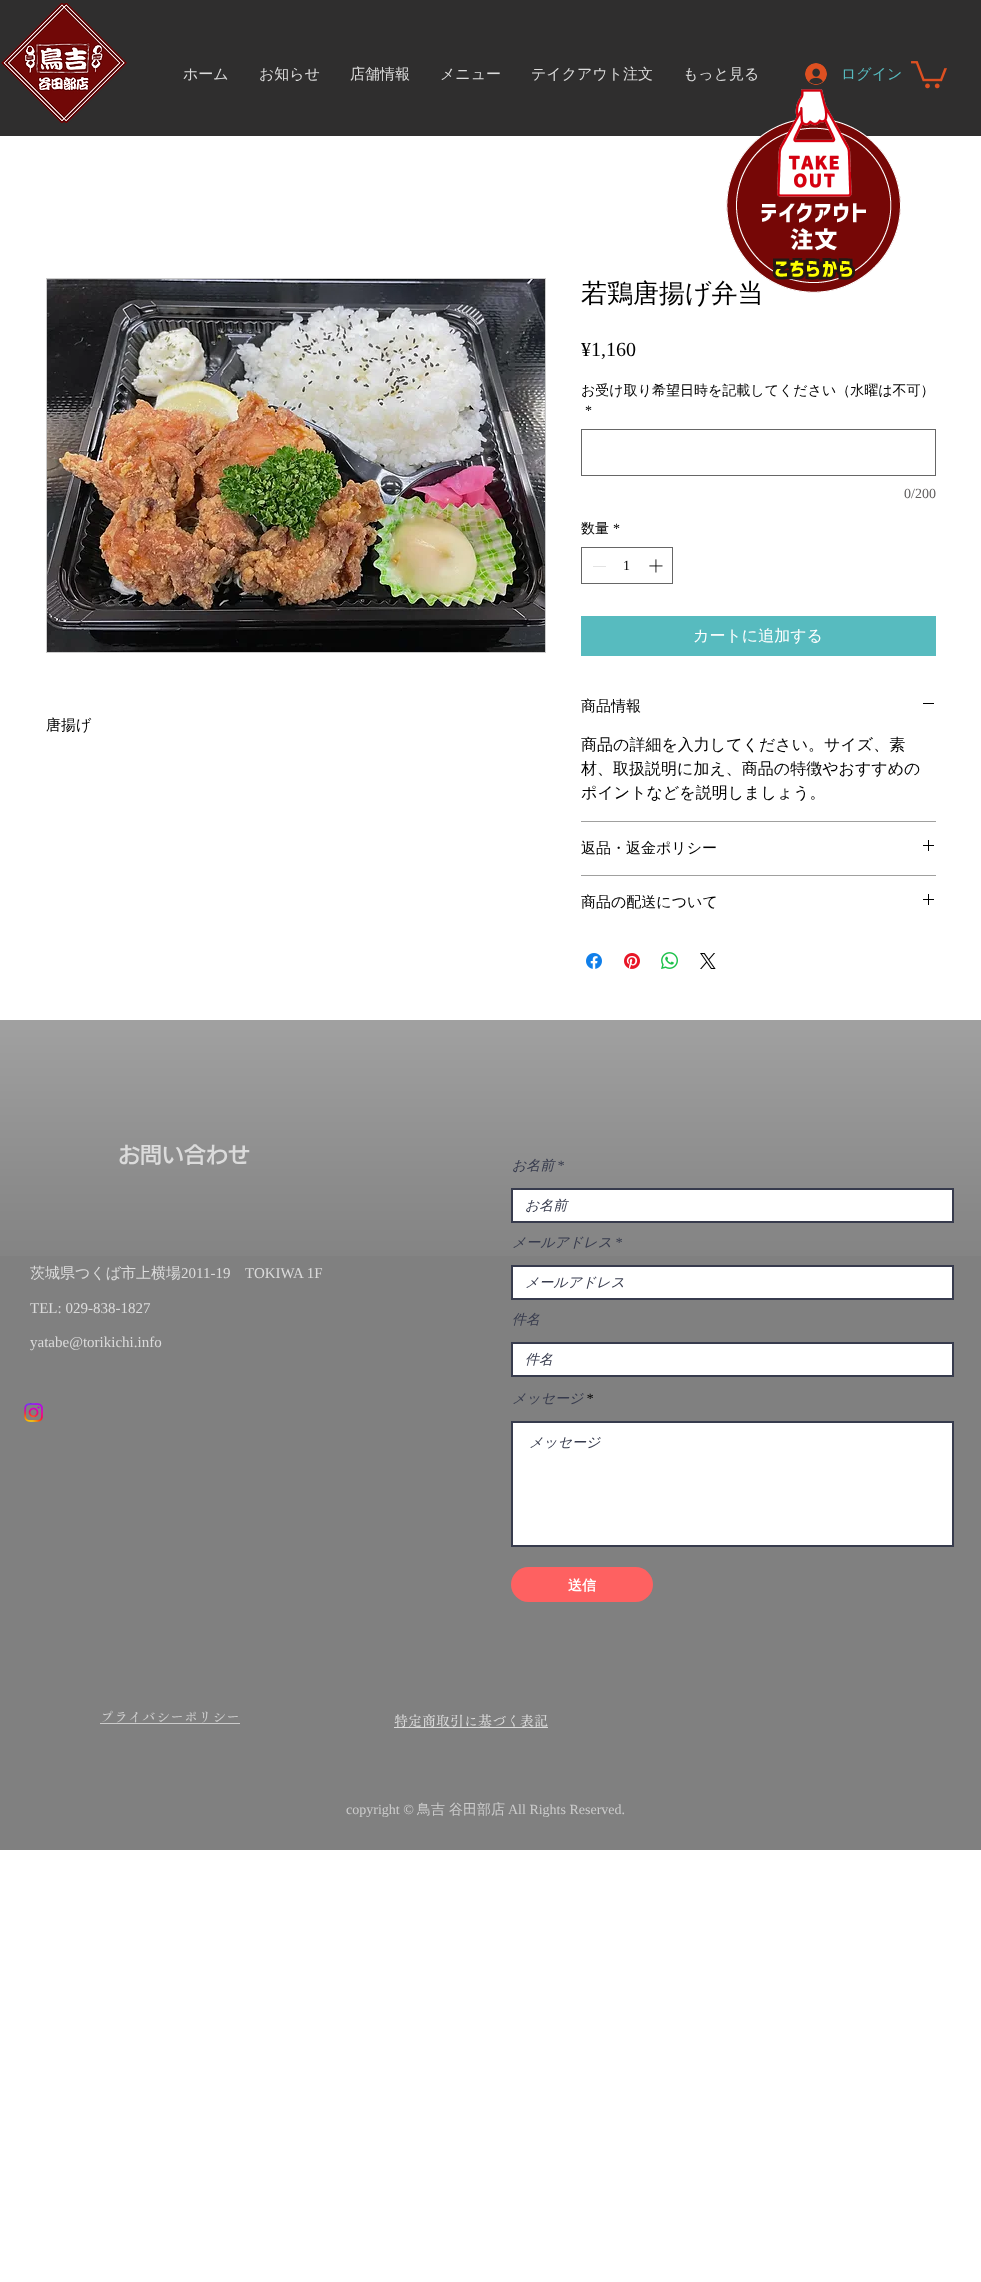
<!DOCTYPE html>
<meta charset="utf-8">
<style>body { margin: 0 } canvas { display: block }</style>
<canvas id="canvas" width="981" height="2282"></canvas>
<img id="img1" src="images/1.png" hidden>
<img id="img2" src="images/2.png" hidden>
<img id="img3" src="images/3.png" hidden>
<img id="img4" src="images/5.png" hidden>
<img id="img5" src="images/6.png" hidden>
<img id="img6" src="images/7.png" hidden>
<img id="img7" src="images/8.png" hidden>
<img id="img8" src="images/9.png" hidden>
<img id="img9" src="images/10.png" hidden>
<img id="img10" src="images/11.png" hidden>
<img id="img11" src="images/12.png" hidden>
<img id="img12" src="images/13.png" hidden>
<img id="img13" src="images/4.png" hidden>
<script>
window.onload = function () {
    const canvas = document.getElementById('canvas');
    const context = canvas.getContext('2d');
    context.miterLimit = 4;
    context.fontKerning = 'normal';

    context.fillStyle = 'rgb(255, 255, 255)';
    context.fillRect(0, 0, 981, 2282);
    context.fillStyle = 'rgb(47, 46, 46)';
    context.fillRect(0, 0, 981, 136);
    context.drawImage(document.getElementById('img1'), 1, 3, 126, 120);
    context.drawImage(document.getElementById('img2'), 805, 63, 22, 22);
    context.drawImage(document.getElementById('img3'), 911, 61, 36, 28);
    context.strokeStyle = 'rgb(204, 204, 204)';
    context.strokeRect(46.5, 278.5, 499, 374);
    context.drawImage(document.getElementById('img4'), 47, 279, 498, 373);
    context.strokeStyle = 'rgb(102, 102, 102)';
    context.strokeRect(581.5, 429.5, 354, 46);
    context.strokeRect(581.5, 547.5, 91, 36);
    context.fillStyle = 'rgb(227, 227, 227)';
    context.fillRect(593, 566, 13, 1);
    context.drawImage(document.getElementById('img5'), 649, 559, 14, 14);
    context.fillStyle = 'rgb(87, 187, 191)';
    context.fillRect(581, 616, 355, 40);
    context.fillStyle = 'rgb(160, 160, 159)';
    context.fillRect(581, 821, 355, 1);
    context.fillStyle = 'rgb(0, 0, 0)';
    context.fillRect(923, 703, 11, 1);
    context.fillStyle = 'rgb(160, 160, 159)';
    context.fillRect(581, 875, 355, 1);
    context.drawImage(document.getElementById('img6'), 923, 840, 11, 11);
    context.drawImage(document.getElementById('img6'), 923, 894, 11, 11);
    context.drawImage(document.getElementById('img7'), 586, 953, 16, 16);
    context.drawImage(document.getElementById('img8'), 624, 953, 16, 16);
    context.drawImage(document.getElementById('img9'), 661, 952, 17, 17);
    context.drawImage(document.getElementById('img10'), 700, 953, 16, 16);
    context.fillStyle = 'rgb(128, 128, 128)';
    context.fillRect(0, 1020, 981, 830);
    context.drawImage(document.getElementById('img11'), 0, 1020, 981, 236);
    context.fillStyle = 'rgb(255, 255, 255)';
    context.beginPath();
    context.rect(512, 1189, 441, 33);
    context.fill();
    context.strokeStyle = 'rgb(55, 59, 77)';
    context.lineWidth = 2;
    context.stroke();
    context.beginPath();
    context.rect(512, 1266, 441, 33);
    context.fill();
    context.stroke();
    context.beginPath();
    context.rect(512, 1343, 441, 33);
    context.fill();
    context.stroke();
    context.beginPath();
    context.rect(512, 1422, 441, 124);
    context.fill();
    context.stroke();
    context.fillStyle = 'rgb(254, 97, 97)';
    context.beginPath();
    context.roundRect(511, 1567, 142, 35, 17.5);
    context.fill();
    context.drawImage(document.getElementById('img12'), 24, 1403, 19, 19);
    context.fillStyle = 'rgb(204, 204, 204)';
    context.fillRect(100, 1723, 140, 1);
    context.fillStyle = 'rgb(219, 219, 219)';
    context.fillRect(394, 1727, 154, 1);
    context.font = '500 15px WenQuanYi Zen Hei';
    context.fillText('ホーム', 183, 79);
    context.fillText('お知らせ', 259, 79);
    context.fillText('店舗情報', 350, 79);
    context.fillText('メニュー', 440, 79);
    context.fillText('テイクアウト注文', 531, 79);
    context.fillText('もっと見る', 683, 79);
    context.fillStyle = 'rgb(87, 187, 191)';
    context.fillText('ログイン', 841, 79);
    context.fillStyle = 'rgb(0, 0, 0)';
    context.fillText('唐揚げ', 46, 730);
    context.font = '500 26px WenQuanYi Zen Hei';
    context.fillText('若鶏唐揚げ弁当', 581, 302);
    context.drawImage(document.getElementById('img13'), 726, 89, 175, 204);
    context.font = '20px Liberation Serif';
    context.fillText('¥1,160', 581, 356);
    context.font = '500 14px WenQuanYi Zen Hei';
    context.fillText('お受け取り希望日時を記載してください（水曜は不可）', 581, 395);
    context.font = '14px Liberation Serif';
    context.fillText('*', 585, 415);
    context.fillStyle = 'rgb(96, 94, 94)';
    context.fillText('0/200', 904, 498);
    context.font = '500 14px WenQuanYi Zen Hei';
    context.fillStyle = 'rgb(0, 0, 0)';
    context.fillText('数量', 581, 533);
    context.font = '14px Liberation Serif';
    context.fillText('*', 613, 533);
    context.fillText('1', 623, 570);
    context.font = '500 16px WenQuanYi Zen Hei';
    context.fillStyle = 'rgb(255, 255, 255)';
    context.fillText('カートに追加する', 693, 641);
    context.font = '500 15px WenQuanYi Zen Hei';
    context.fillStyle = 'rgb(0, 0, 0)';
    context.fillText('商品情報', 581, 711);
    context.font = '500 16px WenQuanYi Zen Hei';
    context.fillText('商品の詳細を入力してください。サイズ、素', 581, 750);
    context.fillText('材、取扱説明に加え、商品の特徴やおすすめの', 581, 774);
    context.fillText('ポイントなどを説明しましょう。', 581, 798);
    context.font = '500 15px WenQuanYi Zen Hei';
    context.fillText('返品・返金ポリシー', 581, 853);
    context.fillText('商品の配送について', 581, 907);
    context.font = '600 22px "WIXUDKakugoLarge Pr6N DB"';
    context.fillStyle = 'rgb(219, 219, 219)';
    context.fillText('お問い合わせ', 118, 1163);
    context.font = '500 15px WenQuanYi Zen Hei';
    context.fillText('茨城県つくば市上横場', 30, 1278);
    context.font = '15px Liberation Serif';
    context.fillText('2011-19', 181, 1278);
    context.fillText('TOKIWA 1F', 245, 1278);
    context.fillText('TEL: 029-838-1827', 30, 1313);
    context.fillText('yatabe@torikichi.info', 30, 1347);
    context.font = 'italic 500 14px WenQuanYi Zen Hei';
    context.fillStyle = 'rgb(55, 59, 77)';
    context.fillText('お名前', 512, 1170);
    context.font = 'italic 14px Liberation Serif';
    context.fillText('*', 557, 1170);
    context.font = 'italic 500 14px WenQuanYi Zen Hei';
    context.fillText('お名前', 525, 1210);
    context.fillText('メールアドレス', 512, 1247);
    context.font = 'italic 14px Liberation Serif';
    context.fillText('*', 615, 1247);
    context.font = 'italic 500 14px WenQuanYi Zen Hei';
    context.fillText('メールアドレス', 525, 1287);
    context.fillText('件名', 512, 1324);
    context.fillText('件名', 525, 1364);
    context.fillText('メッセージ', 512, 1403);
    context.font = 'italic 14px Liberation Serif';
    context.fillStyle = 'rgb(0, 0, 0)';
    context.fillText('*', 586, 1403);
    context.font = 'italic 500 14px WenQuanYi Zen Hei';
    context.fillStyle = 'rgb(55, 59, 77)';
    context.fillText('メッセージ', 529, 1447);
    context.font = 'bold 14px WenQuanYi Zen Hei';
    context.fillStyle = 'rgb(255, 255, 255)';
    context.fillText('送信', 568, 1590);
    context.font = '500 14px "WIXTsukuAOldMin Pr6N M"';
    context.fillStyle = 'rgb(204, 204, 204)';
    context.fillText('プライバシーポリシー', 100, 1722);
    context.fillStyle = 'rgb(219, 219, 219)';
    context.fillText('特定商取引に基づく表記', 394, 1726);
    context.font = '14px Liberation Serif';
    context.fillStyle = 'rgb(204, 204, 204)';
    context.fillText('copyright ©', 346, 1814);
    context.font = '500 14px WenQuanYi Zen Hei';
    context.fillText('鳥吉', 417, 1814);
    context.fillText('谷田部店', 449, 1814);
    context.font = '14px Liberation Serif';
    context.fillText('All Rights Reserved.', 508, 1814);
};
</script>
